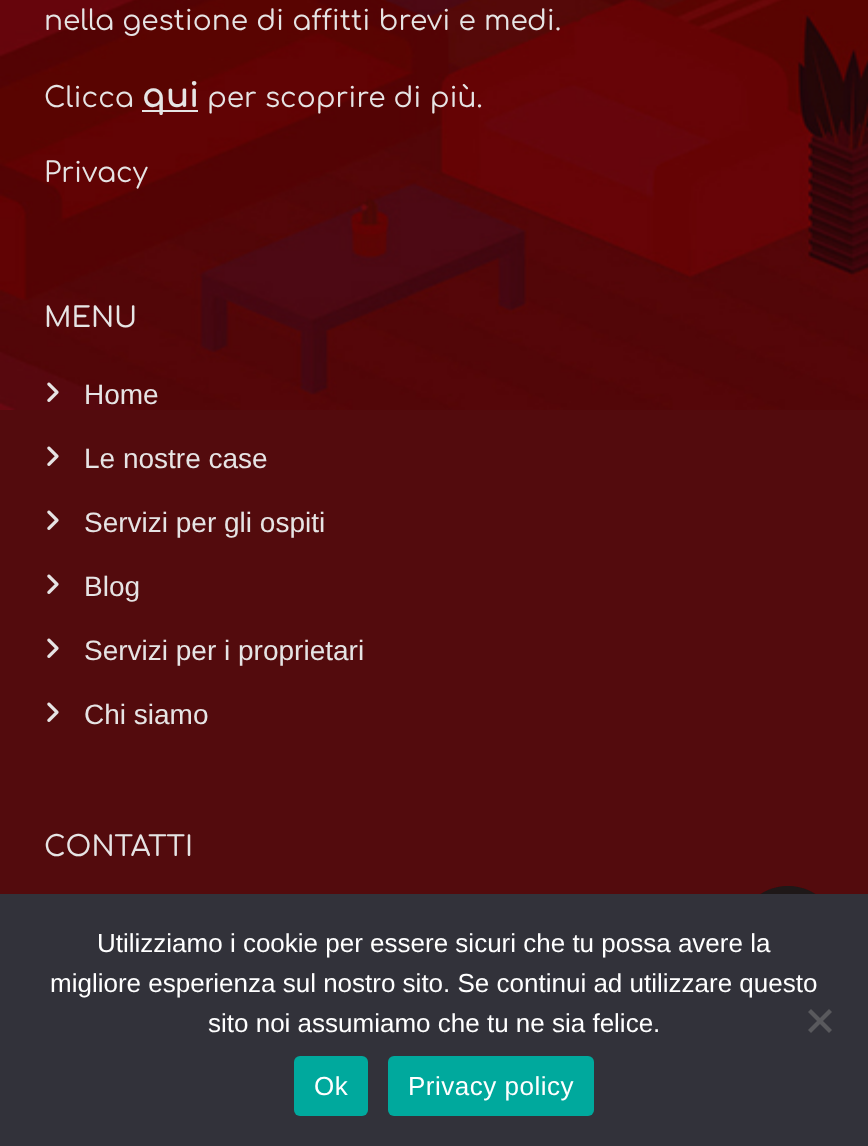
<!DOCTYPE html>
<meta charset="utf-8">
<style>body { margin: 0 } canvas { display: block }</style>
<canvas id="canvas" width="868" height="1146"></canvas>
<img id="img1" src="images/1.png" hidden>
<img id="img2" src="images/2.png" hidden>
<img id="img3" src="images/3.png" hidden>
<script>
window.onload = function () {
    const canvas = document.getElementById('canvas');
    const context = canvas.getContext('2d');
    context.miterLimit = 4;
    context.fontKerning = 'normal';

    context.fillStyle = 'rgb(83, 11, 13)';
    context.fillRect(0, 0, 868, 1146);
    context.drawImage(document.getElementById('img1'), 0, 0, 868, 410);
    context.fillStyle = 'rgb(230, 228, 228)';
    context.fillRect(142, 110, 56, 2);
    context.drawImage(document.getElementById('img2'), 47, 382, 12, 20);
    context.drawImage(document.getElementById('img3'), 47, 446, 12, 20);
    context.drawImage(document.getElementById('img3'), 47, 510, 12, 20);
    context.drawImage(document.getElementById('img3'), 47, 574, 12, 20);
    context.drawImage(document.getElementById('img3'), 47, 638, 12, 20);
    context.drawImage(document.getElementById('img3'), 47, 702, 12, 20);
    context.fillStyle = 'rgb(43, 22, 22)';
    context.beginPath();
    context.arc(788, 936, 50, 0, 2 * Math.PI);
    context.fill();
    context.fillStyle = 'rgba(26, 26, 26, 0.7)';
    context.beginPath();
    context.arc(788, 936, 50, 0, 2 * Math.PI);
    context.fill();
    context.fillStyle = 'rgb(50, 50, 58)';
    context.fillRect(0, 894, 868, 252);
    context.fillStyle = 'rgb(89, 89, 93)';
    context.beginPath();
    context.moveTo(829, 1009);
    context.lineTo(832, 1012);
    context.lineTo(811, 1033);
    context.lineTo(808, 1030);
    context.closePath();
    context.fill();
    context.beginPath();
    context.moveTo(808, 1012);
    context.lineTo(811, 1009);
    context.lineTo(832, 1030);
    context.lineTo(829, 1033);
    context.closePath();
    context.fill();
    context.fillStyle = 'rgb(0, 169, 157)';
    context.beginPath();
    context.roundRect(294, 1056, 74, 60, 6);
    context.fill();
    context.beginPath();
    context.roundRect(388, 1056, 206, 60, 6);
    context.fill();
    context.font = '28px Comfortaa';
    context.fillStyle = 'rgb(230, 228, 228)';
    context.fillText('nella gestione di affitti brevi e medi.', 44, 30);
    context.fillText('Clicca', 44, 107);
    context.font = 'bold 34px Comfortaa';
    context.fillText('qui', 142, 107);
    context.font = '28px Comfortaa';
    context.fillText('per scoprire di più.', 207, 107);
    context.fillText('Privacy', 44, 182);
    context.font = '500 28px Comfortaa';
    context.fillText('MENU', 44, 327);
    context.font = '28px Liberation Sans';
    context.fillText('Home', 84, 404);
    context.fillText('Le nostre case', 84, 468);
    context.fillText('Servizi per gli ospiti', 84, 532);
    context.fillText('Blog', 84, 596);
    context.fillText('Servizi per i proprietari', 84, 660);
    context.fillText('Chi siamo', 84, 724);
    context.font = '500 28px Comfortaa';
    context.fillText('CONTATTI', 44, 856);
    context.font = '26px Liberation Sans';
    context.fillStyle = 'rgb(255, 255, 255)';
    context.fillText('Utilizziamo i cookie per essere sicuri che tu possa avere la', 97, 952);
    context.fillText('migliore esperienza sul nostro sito. Se continui ad utilizzare questo', 50, 992);
    context.fillText('sito noi assumiamo che tu ne sia felice.', 208, 1032);
    context.letterSpacing = '0.5px';
    context.fillText('Ok', 314, 1095);
    context.fillText('Privacy policy', 408, 1095);
};
</script>
